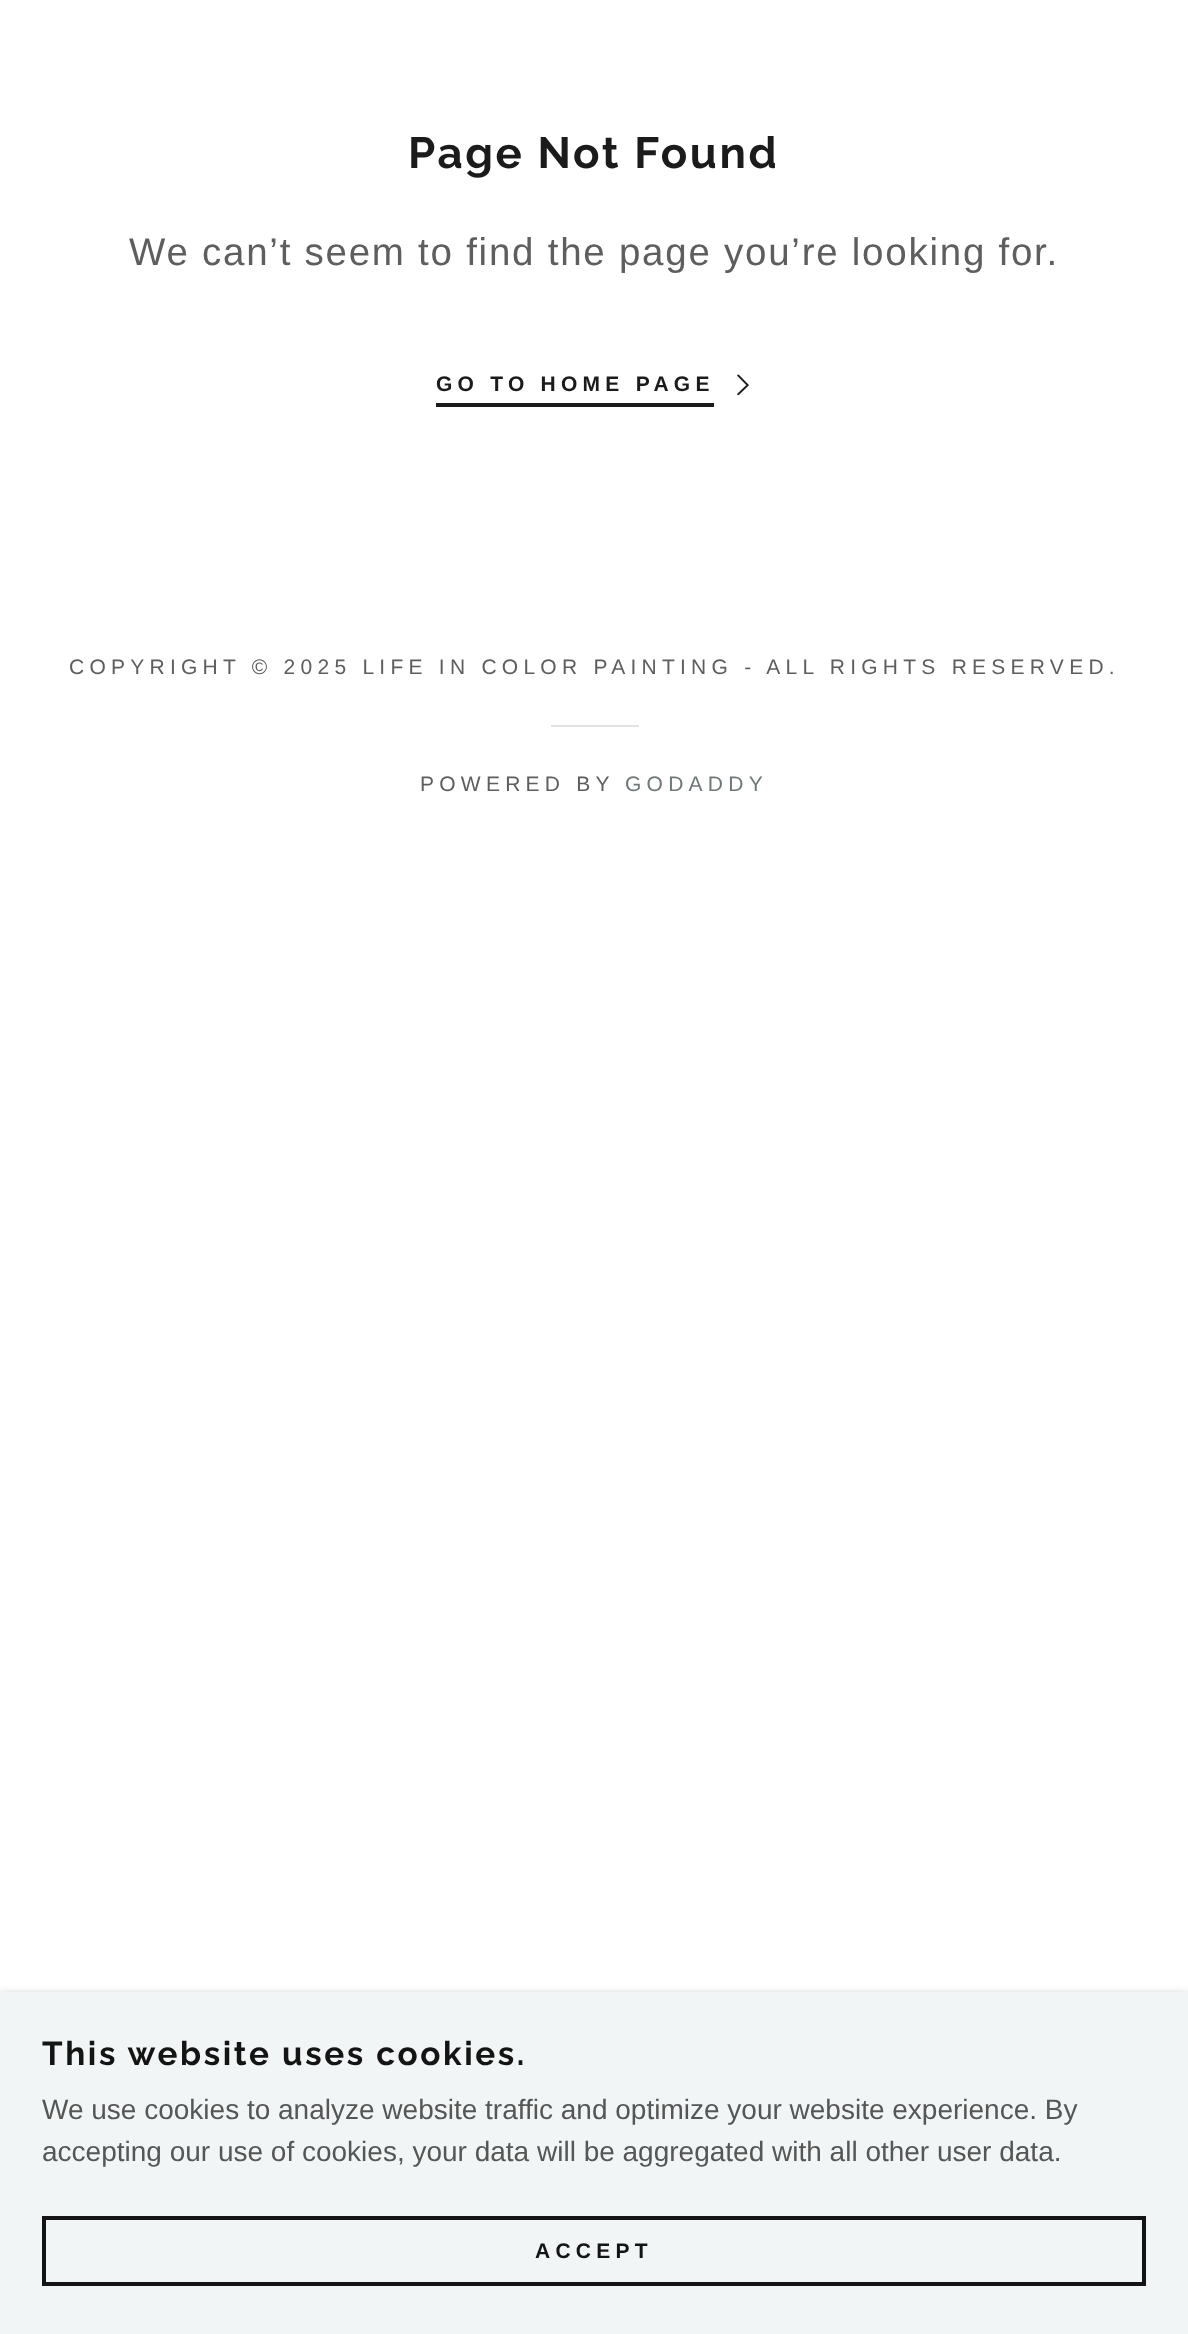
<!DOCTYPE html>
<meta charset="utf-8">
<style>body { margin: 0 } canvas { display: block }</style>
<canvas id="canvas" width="1188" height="2334"></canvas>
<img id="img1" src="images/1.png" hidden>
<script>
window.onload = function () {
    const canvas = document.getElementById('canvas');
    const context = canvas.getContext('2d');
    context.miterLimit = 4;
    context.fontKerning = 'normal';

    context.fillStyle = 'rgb(255, 255, 255)';
    context.fillRect(0, 0, 1188, 2334);
    context.fillStyle = 'rgb(27, 27, 27)';
    context.fillRect(436, 403, 278, 4);
    context.drawImage(document.getElementById('img1'), 737, 374, 12, 22);
    context.fillStyle = 'rgb(226, 226, 226)';
    context.fillRect(551, 725, 88, 2);
    context.fillStyle = 'rgba(0, 0, 0, 0.3)';
    context.filter = 'blur(5px)';
    context.beginPath();
    context.rect(0, 1995, 1188, 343);
    context.fill();
    context.filter = 'none';
    context.fillStyle = 'rgb(242, 245, 245)';
    context.fillRect(0, 1992, 1188, 342);
    context.strokeStyle = 'rgb(20, 20, 20)';
    context.lineWidth = 4;
    context.strokeRect(44, 2218, 1100, 66);
    context.letterSpacing = '2.6px';
    context.font = 'bold 43.75px Raleway';
    context.fillStyle = 'rgb(27, 27, 27)';
    context.fillText('Page Not Found', 408, 168);
    context.letterSpacing = '1.75px';
    context.font = '38.5px Liberation Sans';
    context.fillStyle = 'rgb(94, 94, 94)';
    context.fillText('We can’t seem to find the page you’re looking for.', 129, 265);
    context.letterSpacing = '5.25px';
    context.font = 'bold 21px Liberation Sans';
    context.fillStyle = 'rgb(27, 27, 27)';
    context.fillText('GO TO HOME PAGE', 436, 391);
    context.font = '21px Liberation Sans';
    context.fillStyle = 'rgb(94, 94, 94)';
    context.fillText('COPYRIGHT © 2025 LIFE IN COLOR PAINTING - ALL RIGHTS RESERVED.', 69, 674);
    context.fillText('POWERED BY', 420, 791);
    context.fillStyle = 'rgb(111, 120, 120)';
    context.fillText('GODADDY', 625, 791);
    context.letterSpacing = '2.6px';
    context.font = 'bold 33.25px Raleway';
    context.fillStyle = 'rgb(20, 20, 20)';
    context.fillText('This website uses cookies.', 42, 2065);
    context.letterSpacing = '0px';
    context.font = '28px Liberation Sans';
    context.fillStyle = 'rgb(85, 86, 86)';
    context.fillText('We use cookies to analyze website traffic and optimize your website experience. By', 42, 2119);
    context.fillText('accepting our use of cookies, your data will be aggregated with all other user data.', 42, 2161);
    context.letterSpacing = '5.25px';
    context.font = 'bold 21px Liberation Sans';
    context.fillStyle = 'rgb(20, 20, 20)';
    context.fillText('ACCEPT', 535, 2258);
};
</script>
